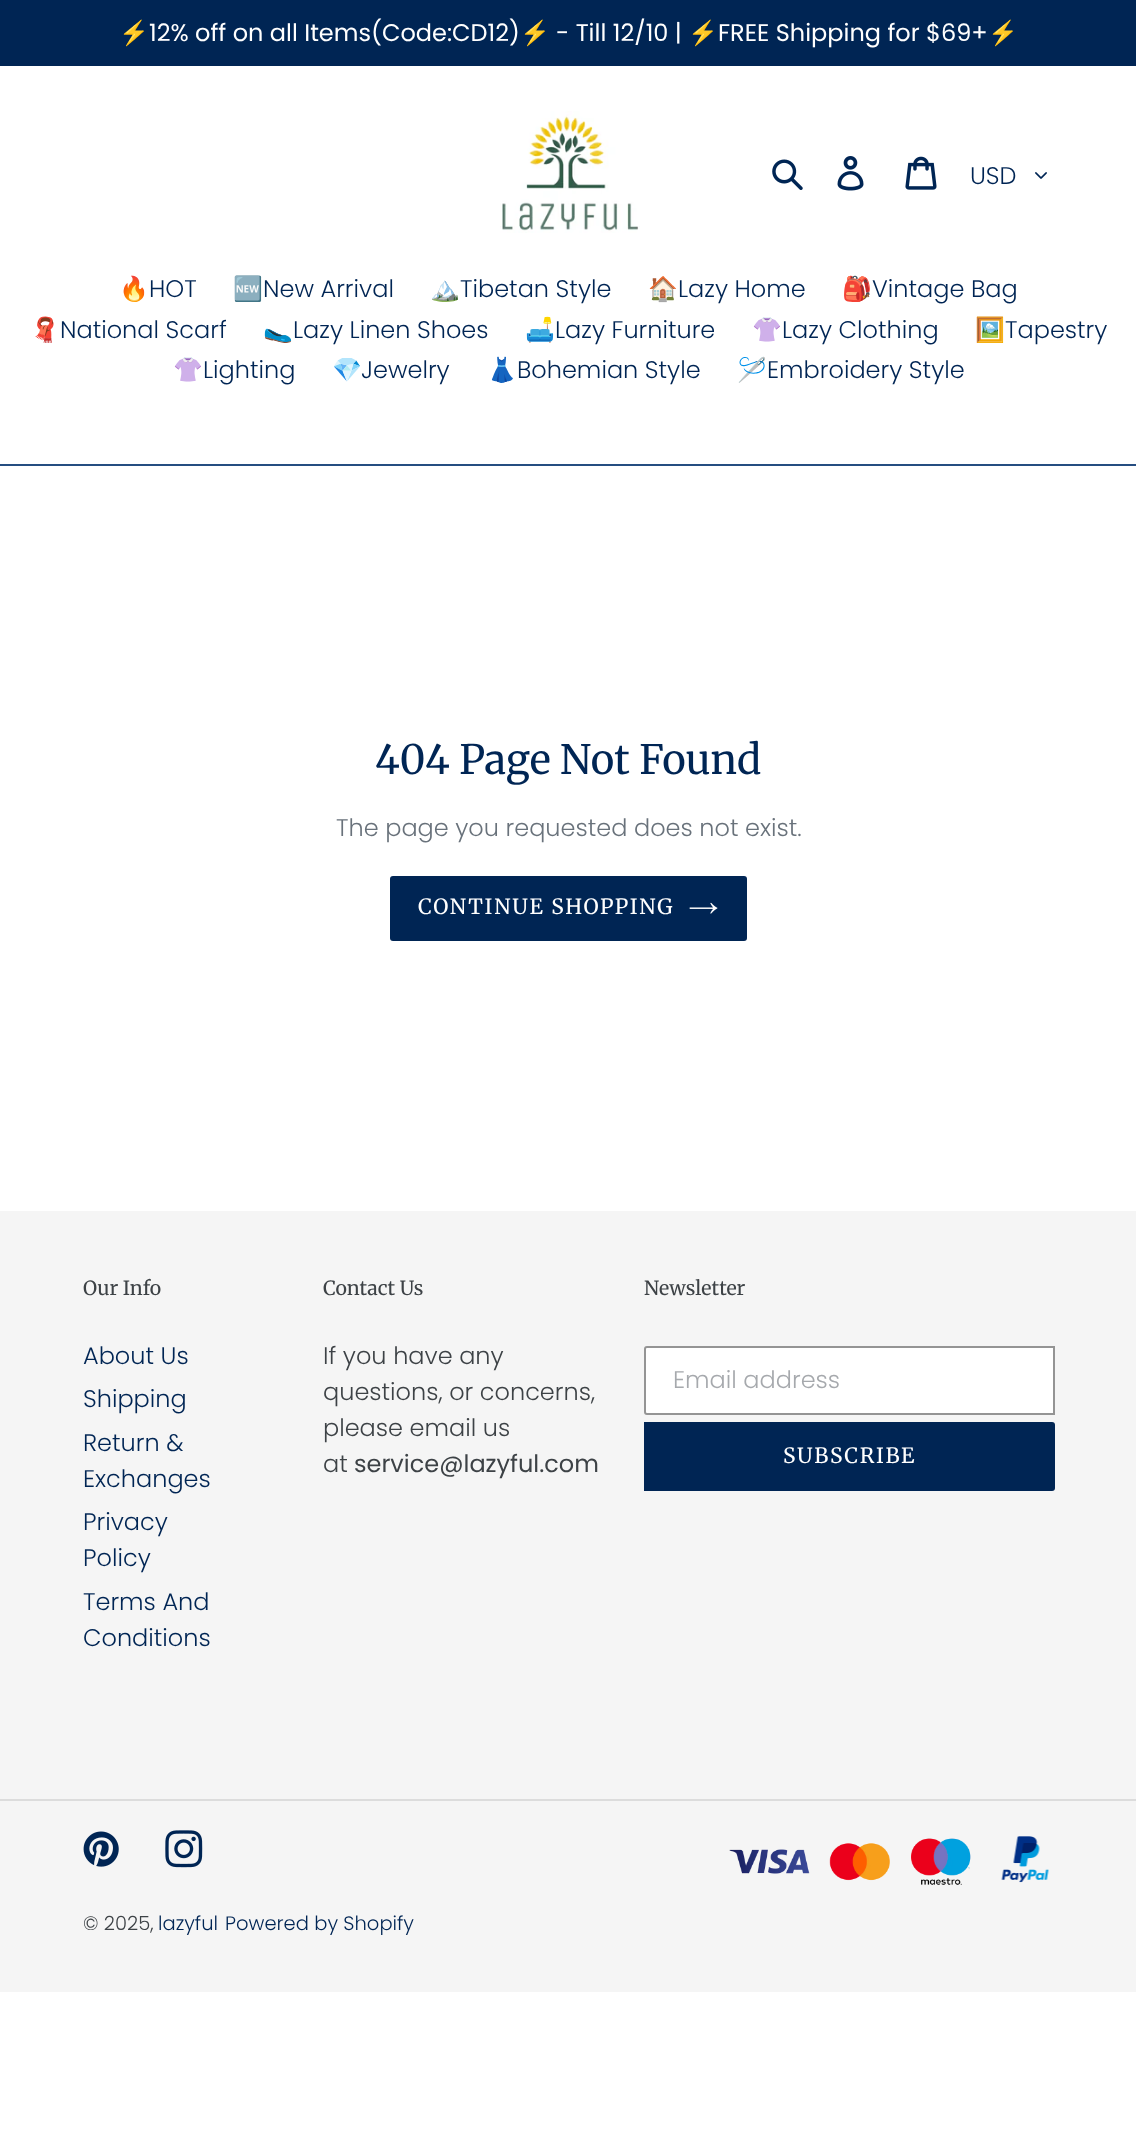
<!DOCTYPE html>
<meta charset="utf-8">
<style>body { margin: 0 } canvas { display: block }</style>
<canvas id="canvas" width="1136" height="2129"></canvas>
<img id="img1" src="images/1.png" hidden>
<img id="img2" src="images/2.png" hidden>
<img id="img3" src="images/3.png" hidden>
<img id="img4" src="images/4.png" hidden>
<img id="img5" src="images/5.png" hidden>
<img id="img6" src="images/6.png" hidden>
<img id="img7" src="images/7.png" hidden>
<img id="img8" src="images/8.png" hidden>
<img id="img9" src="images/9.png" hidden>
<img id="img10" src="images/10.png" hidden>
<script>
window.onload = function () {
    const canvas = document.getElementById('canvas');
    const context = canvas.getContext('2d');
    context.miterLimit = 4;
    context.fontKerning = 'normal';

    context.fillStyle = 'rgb(255, 255, 255)';
    context.fillRect(0, 0, 1136, 2129);
    context.fillStyle = 'rgb(0, 37, 84)';
    context.fillRect(0, 0, 1136, 66);
    context.drawImage(document.getElementById('img1'), 500, 111, 140, 122);
    context.drawImage(document.getElementById('img2'), 772, 159, 31, 31);
    context.drawImage(document.getElementById('img3'), 837, 156, 27, 35);
    context.drawImage(document.getElementById('img4'), 905, 156, 32, 34);
    context.drawImage(document.getElementById('img5'), 1035, 172, 12, 7);
    context.fillStyle = 'rgb(37, 77, 129)';
    context.fillRect(0, 464, 1136, 2);
    context.fillStyle = 'rgb(0, 37, 84)';
    context.beginPath();
    context.roundRect(390, 876, 357, 65, 3);
    context.fill();
    context.drawImage(document.getElementById('img6'), 689, 902, 29, 12);
    context.fillStyle = 'rgb(245, 245, 245)';
    context.fillRect(0, 1211, 1136, 781);
    context.fillStyle = 'rgb(255, 255, 255)';
    context.beginPath();
    context.roundRect(645, 1347, 409, 67, [2, 0, 0, 2]);
    context.fill();
    context.strokeStyle = 'rgb(148, 148, 148)';
    context.lineWidth = 2;
    context.stroke();
    context.fillStyle = 'rgb(0, 37, 84)';
    context.beginPath();
    context.roundRect(644, 1422, 411, 69, [0, 3, 3, 0]);
    context.fill();
    context.fillStyle = 'rgb(220, 220, 220)';
    context.fillRect(0, 1799, 1136, 2);
    context.drawImage(document.getElementById('img7'), 83, 1831, 36, 36);
    context.drawImage(document.getElementById('img8'), 165, 1830, 38, 38);
    context.drawImage(document.getElementById('img9'), 729, 1838, 242, 47);
    context.drawImage(document.getElementById('img10'), 1001, 1836, 48, 47);
    context.font = '24px Noto Color Emoji';
    context.fillStyle = 'rgb(255, 255, 255)';
    context.fillText('⚡️', 119, 41);
    context.font = '24px Poppins';
    context.fillText('12% off on all Items(Code:CD12)', 149, 41);
    context.font = '24px Noto Color Emoji';
    context.fillText('⚡️', 520, 41);
    context.font = '24px Poppins';
    context.fillText('- Till 12/10 |', 556, 41);
    context.font = '24px Noto Color Emoji';
    context.fillText('⚡️', 688, 41);
    context.font = '24px Poppins';
    context.fillText('FREE Shipping for $69+', 718, 41);
    context.font = '24px Noto Color Emoji';
    context.fillText('⚡️', 988, 41);
    context.font = '300 24px Poppins';
    context.fillStyle = 'rgb(0, 37, 84)';
    context.fillText('USD', 970, 184);
    context.font = '24px Noto Color Emoji';
    context.fillText('🔥', 119, 297);
    context.font = '300 24px Poppins';
    context.fillText('HOT', 149, 297);
    context.font = '24px Noto Color Emoji';
    context.fillText('🆕', 233, 297);
    context.font = '300 24px Poppins';
    context.fillText('New Arrival', 263, 297);
    context.font = '24px Noto Color Emoji';
    context.fillText('🏔️', 430, 297);
    context.font = '300 24px Poppins';
    context.fillText('Tibetan Style', 460, 297);
    context.font = '24px Noto Color Emoji';
    context.fillText('🏠', 648, 297);
    context.font = '300 24px Poppins';
    context.fillText('Lazy Home', 678, 297);
    context.font = '24px Noto Color Emoji';
    context.fillText('🎒', 842, 297);
    context.font = '300 24px Poppins';
    context.fillText('Vintage Bag', 872, 297);
    context.font = '24px Noto Color Emoji';
    context.fillText('🧣', 30, 338);
    context.font = '300 24px Poppins';
    context.fillText('National Scarf', 60, 338);
    context.font = '24px Noto Color Emoji';
    context.fillText('🥿', 263, 338);
    context.font = '300 24px Poppins';
    context.fillText('Lazy Linen Shoes', 293, 338);
    context.font = '24px Noto Color Emoji';
    context.fillText('🛋️', 525, 338);
    context.font = '300 24px Poppins';
    context.fillText('Lazy Furniture', 555, 338);
    context.font = '24px Noto Color Emoji';
    context.fillText('👚', 752, 338);
    context.font = '300 24px Poppins';
    context.fillText('Lazy Clothing', 782, 338);
    context.font = '24px Noto Color Emoji';
    context.fillText('🖼️', 975, 338);
    context.font = '300 24px Poppins';
    context.fillText('Tapestry', 1005, 338);
    context.font = '24px Noto Color Emoji';
    context.fillText('👚', 173, 378);
    context.font = '300 24px Poppins';
    context.fillText('Lighting', 203, 378);
    context.font = '24px Noto Color Emoji';
    context.fillText('💎', 332, 378);
    context.font = '300 24px Poppins';
    context.fillText('Jewelry', 361, 378);
    context.font = '24px Noto Color Emoji';
    context.fillText('👗', 487, 378);
    context.font = '300 24px Poppins';
    context.fillText('Bohemian Style', 517, 378);
    context.font = '24px Noto Color Emoji';
    context.fillText('🪡', 737, 378);
    context.font = '300 24px Poppins';
    context.fillText('Embroidery Style', 767, 378);
    context.font = '40.5px Merriweather';
    context.fillText('404 Page Not Found', 375, 774);
    context.font = '300 24px Poppins';
    context.fillStyle = 'rgb(105, 114, 123)';
    context.fillText('The page you requested does not exist.', 336, 836);
    context.letterSpacing = '1.7px';
    context.font = '21px "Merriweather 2"';
    context.fillStyle = 'rgb(255, 255, 255)';
    context.fillText('CONTINUE SHOPPING', 418, 914);
    context.letterSpacing = '0px';
    context.font = '19.5px "Merriweather 2"';
    context.fillStyle = 'rgb(61, 66, 70)';
    context.fillText('Our Info', 83, 1295);
    context.font = '300 24px Poppins';
    context.fillStyle = 'rgb(0, 37, 84)';
    context.fillText('About Us', 83, 1364);
    context.fillText('Shipping', 83, 1407);
    context.fillText('Return &', 83, 1451);
    context.fillText('Exchanges', 83, 1487);
    context.fillText('Privacy', 83, 1530);
    context.fillText('Policy', 83, 1566);
    context.fillText('Terms And', 83, 1610);
    context.fillText('Conditions', 83, 1646);
    context.font = '19.5px "Merriweather 2"';
    context.fillStyle = 'rgb(61, 66, 70)';
    context.fillText('Contact Us', 323, 1295);
    context.font = '300 24px Poppins';
    context.fillText('If you have any', 323, 1364);
    context.fillText('questions, or concerns,', 323, 1400);
    context.fillText('please email us', 323, 1436);
    context.fillText('at', 323, 1472);
    context.font = '24px Poppins';
    context.fillText('service@lazyful.com', 354, 1472);
    context.font = '19.5px "Merriweather 2"';
    context.fillText('Newsletter', 644, 1295);
    context.font = '300 24px Poppins';
    context.fillStyle = 'rgb(166, 169, 173)';
    context.fillText('Email address', 673, 1388);
    context.letterSpacing = '1.7px';
    context.font = '21px "Merriweather 2"';
    context.fillStyle = 'rgb(255, 255, 255)';
    context.fillText('SUBSCRIBE', 783, 1463);
    context.letterSpacing = '0px';
    context.font = '300 19.5px Poppins';
    context.fillStyle = 'rgb(61, 66, 70)';
    context.fillText('© 2025,', 83, 1930);
    context.fillStyle = 'rgb(0, 37, 84)';
    context.fillText('lazyful', 158, 1930);
    context.fillText('Powered by Shopify', 225, 1930);
};
</script>
